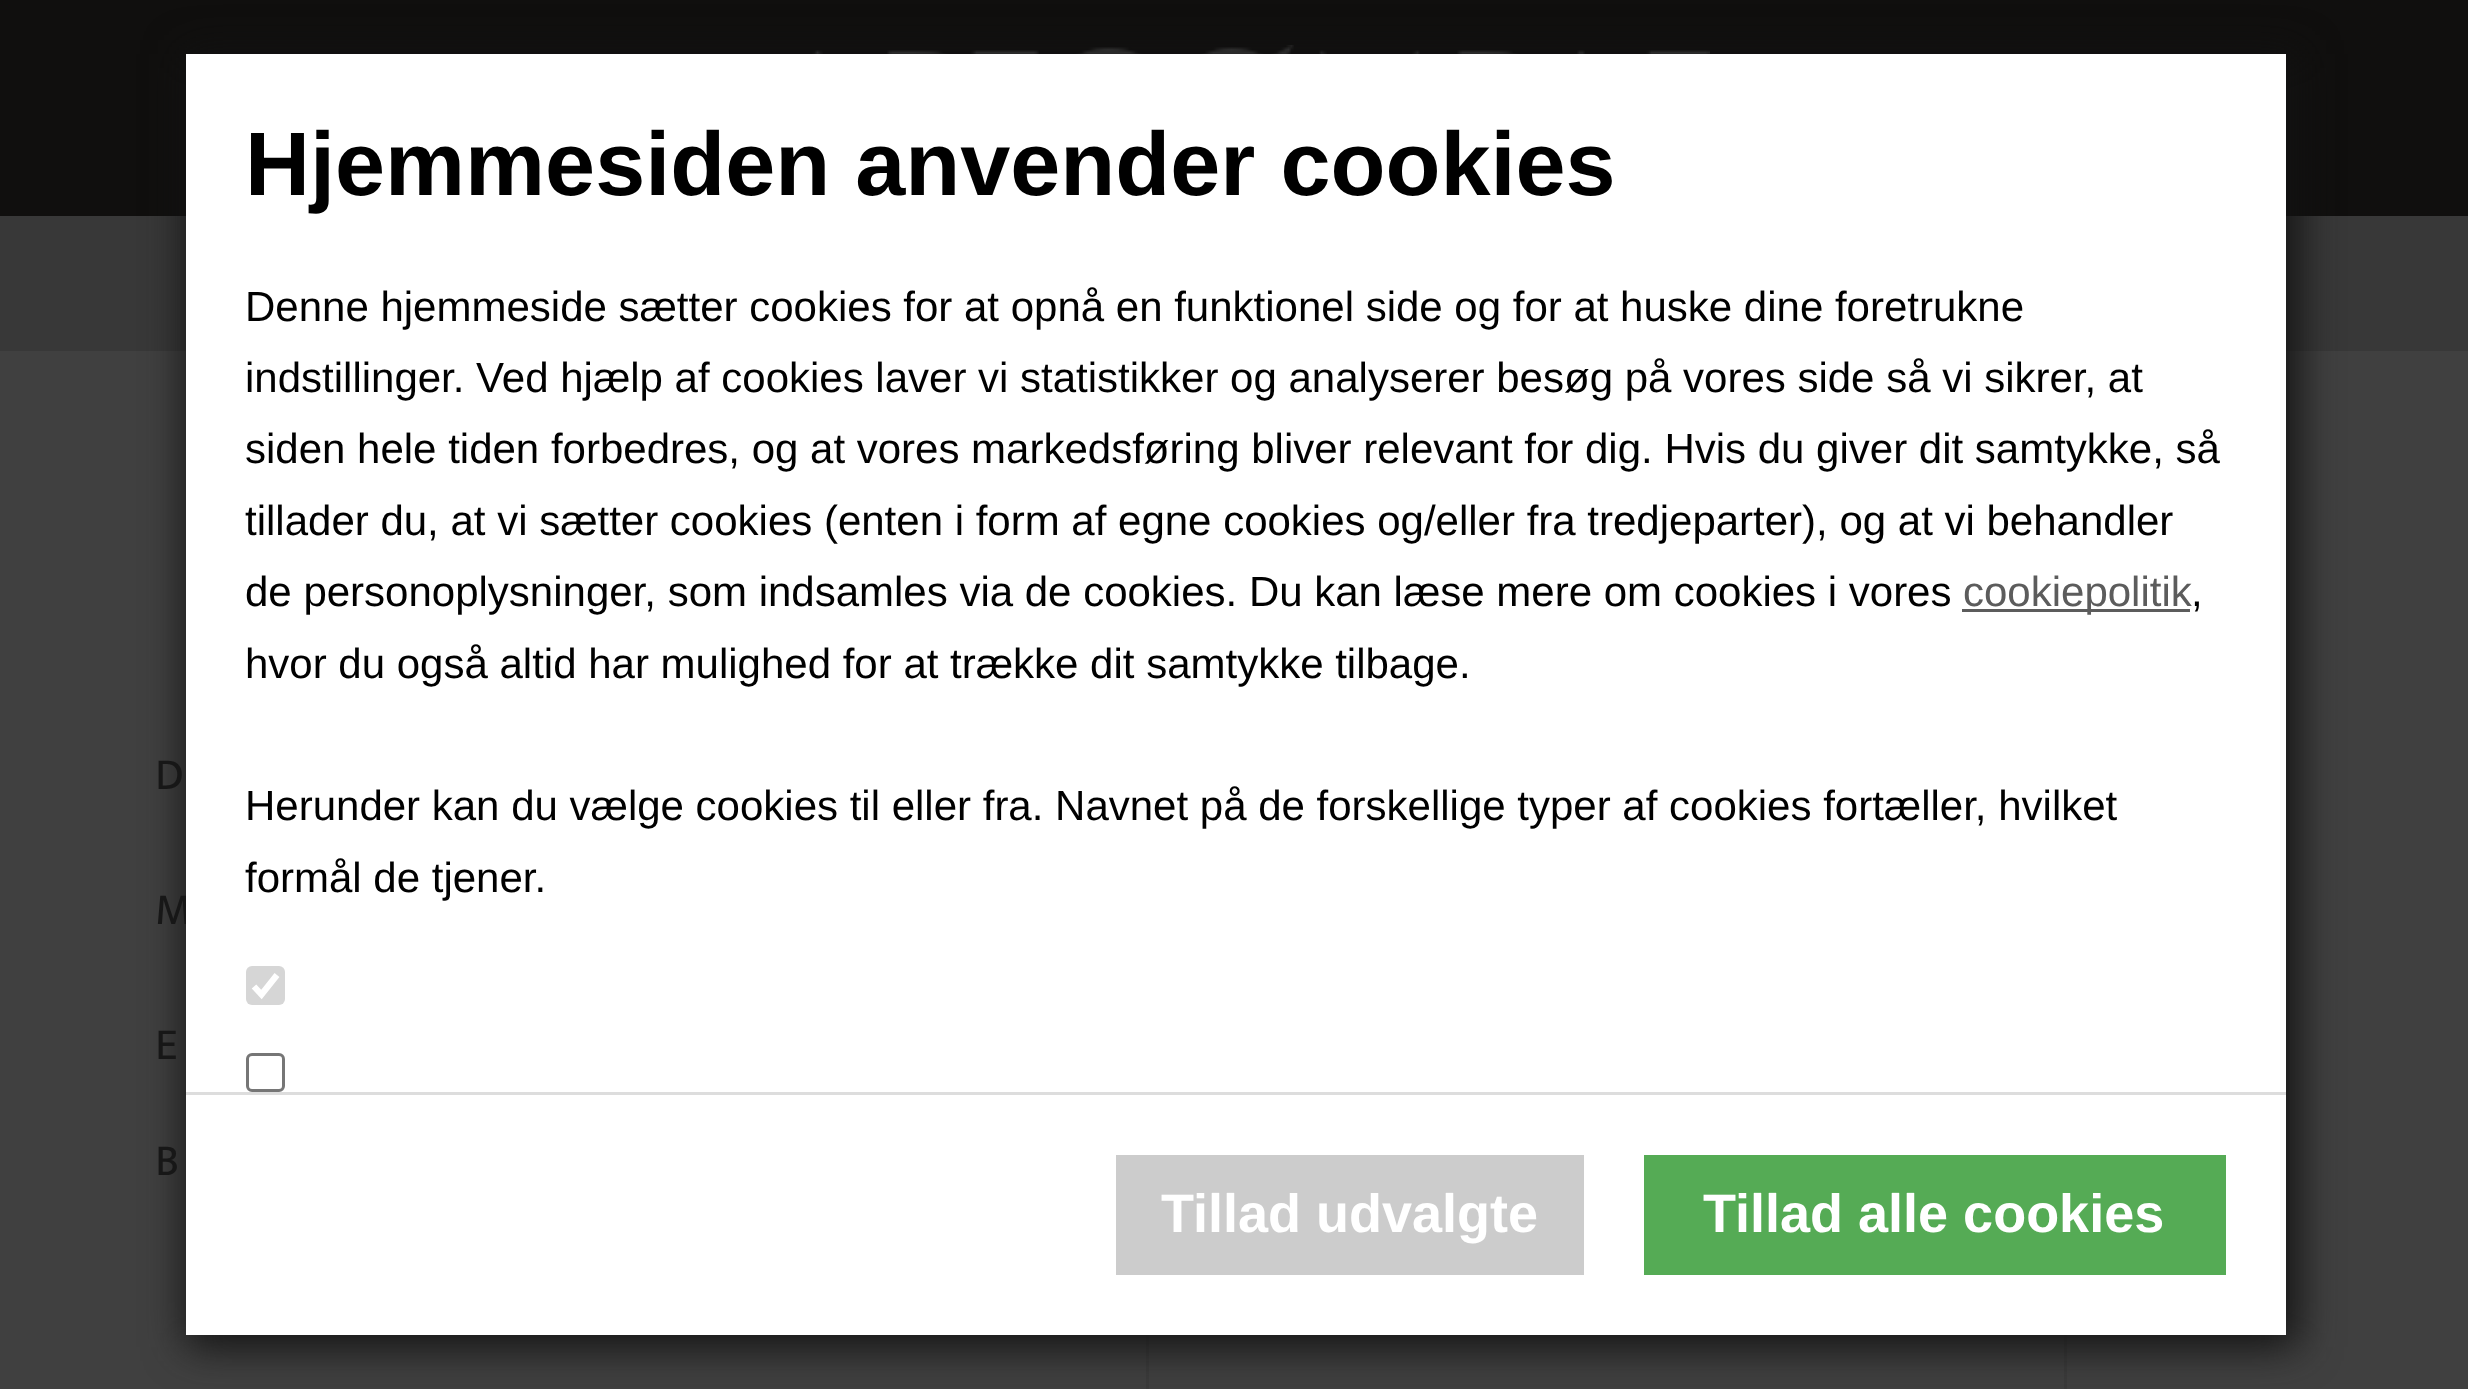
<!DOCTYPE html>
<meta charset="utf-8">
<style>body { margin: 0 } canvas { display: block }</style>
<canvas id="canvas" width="2468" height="1389"></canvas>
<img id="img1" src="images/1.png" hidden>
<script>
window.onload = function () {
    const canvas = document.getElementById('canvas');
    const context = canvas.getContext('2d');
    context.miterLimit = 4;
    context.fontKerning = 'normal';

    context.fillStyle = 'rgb(16, 15, 14)';
    context.fillRect(0, 0, 2468, 1389);
    context.drawImage(document.getElementById('img1'), 812, 45, 898, 9);
    context.fillStyle = 'rgb(56, 56, 56)';
    context.fillRect(0, 216, 2468, 135);
    context.fillStyle = 'rgb(64, 64, 64)';
    context.fillRect(0, 351, 2468, 1038);
    context.strokeStyle = 'rgb(59, 59, 59)';
    context.lineWidth = 3;
    context.strokeRect(1147.5, 1123.5, 918, 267);
    context.fillStyle = 'rgb(18, 18, 18)';
    context.filter = 'blur(21px)';
    context.beginPath();
    context.rect(186, 54, 2112, 1293);
    context.fill();
    context.filter = 'none';
    context.font = '45px Mukta Vaani';
    context.fillStyle = 'rgb(23, 23, 23)';
    context.fillText('D', 155, 789);
    context.fillText('M', 155, 924);
    context.fillText('E', 155, 1059);
    context.fillText('B', 155, 1175);
    context.fillStyle = 'rgb(255, 255, 255)';
    context.fillRect(186, 54, 2100, 1281);
    context.font = 'bold 90px Liberation Sans';
    context.fillStyle = 'rgb(0, 0, 0)';
    context.fillText('Hjemmesiden anvender cookies', 245, 195);
    context.font = '42px Liberation Sans';
    context.fillText('Denne hjemmeside sætter cookies for at opnå en funktionel side og for at huske dine foretrukne', 245, 321);
    context.fillText('indstillinger. Ved hjælp af cookies laver vi statistikker og analyserer besøg på vores side så vi sikrer, at', 245, 392);
    context.fillText('siden hele tiden forbedres, og at vores markedsføring bliver relevant for dig. Hvis du giver dit samtykke, så', 245, 463);
    context.fillText('tillader du, at vi sætter cookies (enten i form af egne cookies og/eller fra tredjeparter), og at vi behandler', 245, 535);
    context.fillText('de personoplysninger, som indsamles via de cookies. Du kan læse mere om cookies i vores', 245, 606);
    context.fillStyle = 'rgb(92, 92, 92)';
    context.fillRect(1962, 609, 228, 3);
    context.fillText('cookiepolitik', 1963, 606);
    context.fillStyle = 'rgb(0, 0, 0)';
    context.fillText(',', 2191, 606);
    context.fillText('hvor du også altid har mulighed for at trække dit samtykke tilbage.', 245, 678);
    context.fillText('Herunder kan du vælge cookies til eller fra. Navnet på de forskellige typer af cookies fortæller, hvilket', 245, 820);
    context.fillText('formål de tjener.', 245, 892);
    context.fillStyle = 'rgb(214, 214, 214)';
    context.beginPath();
    context.roundRect(246, 966, 39, 39, 6);
    context.fill();
    context.beginPath();
    context.moveTo(254, 986.5);
    context.lineTo(261.5, 994.5);
    context.lineTo(277, 975);
    context.strokeStyle = 'rgb(255, 255, 255)';
    context.lineWidth = 6.2;
    context.stroke();
    context.beginPath();
    context.roundRect(247.5, 1054.5, 36, 36, 4.5);
    context.strokeStyle = 'rgb(118, 118, 118)';
    context.lineWidth = 3;
    context.stroke();
    context.fillStyle = 'rgb(221, 221, 221)';
    context.fillRect(186, 1092, 2100, 3);
    context.fillStyle = 'rgb(204, 204, 204)';
    context.fillRect(1116, 1155, 468, 120);
    context.font = 'bold 54px Liberation Sans';
    context.fillStyle = 'rgb(255, 255, 255)';
    context.fillText('Tillad udvalgte', 1161, 1232);
    context.fillStyle = 'rgb(85, 171, 85)';
    context.fillRect(1644, 1155, 582, 120);
    context.fillStyle = 'rgb(255, 255, 255)';
    context.fillText('Tillad alle cookies', 1703, 1232);
};
</script>
